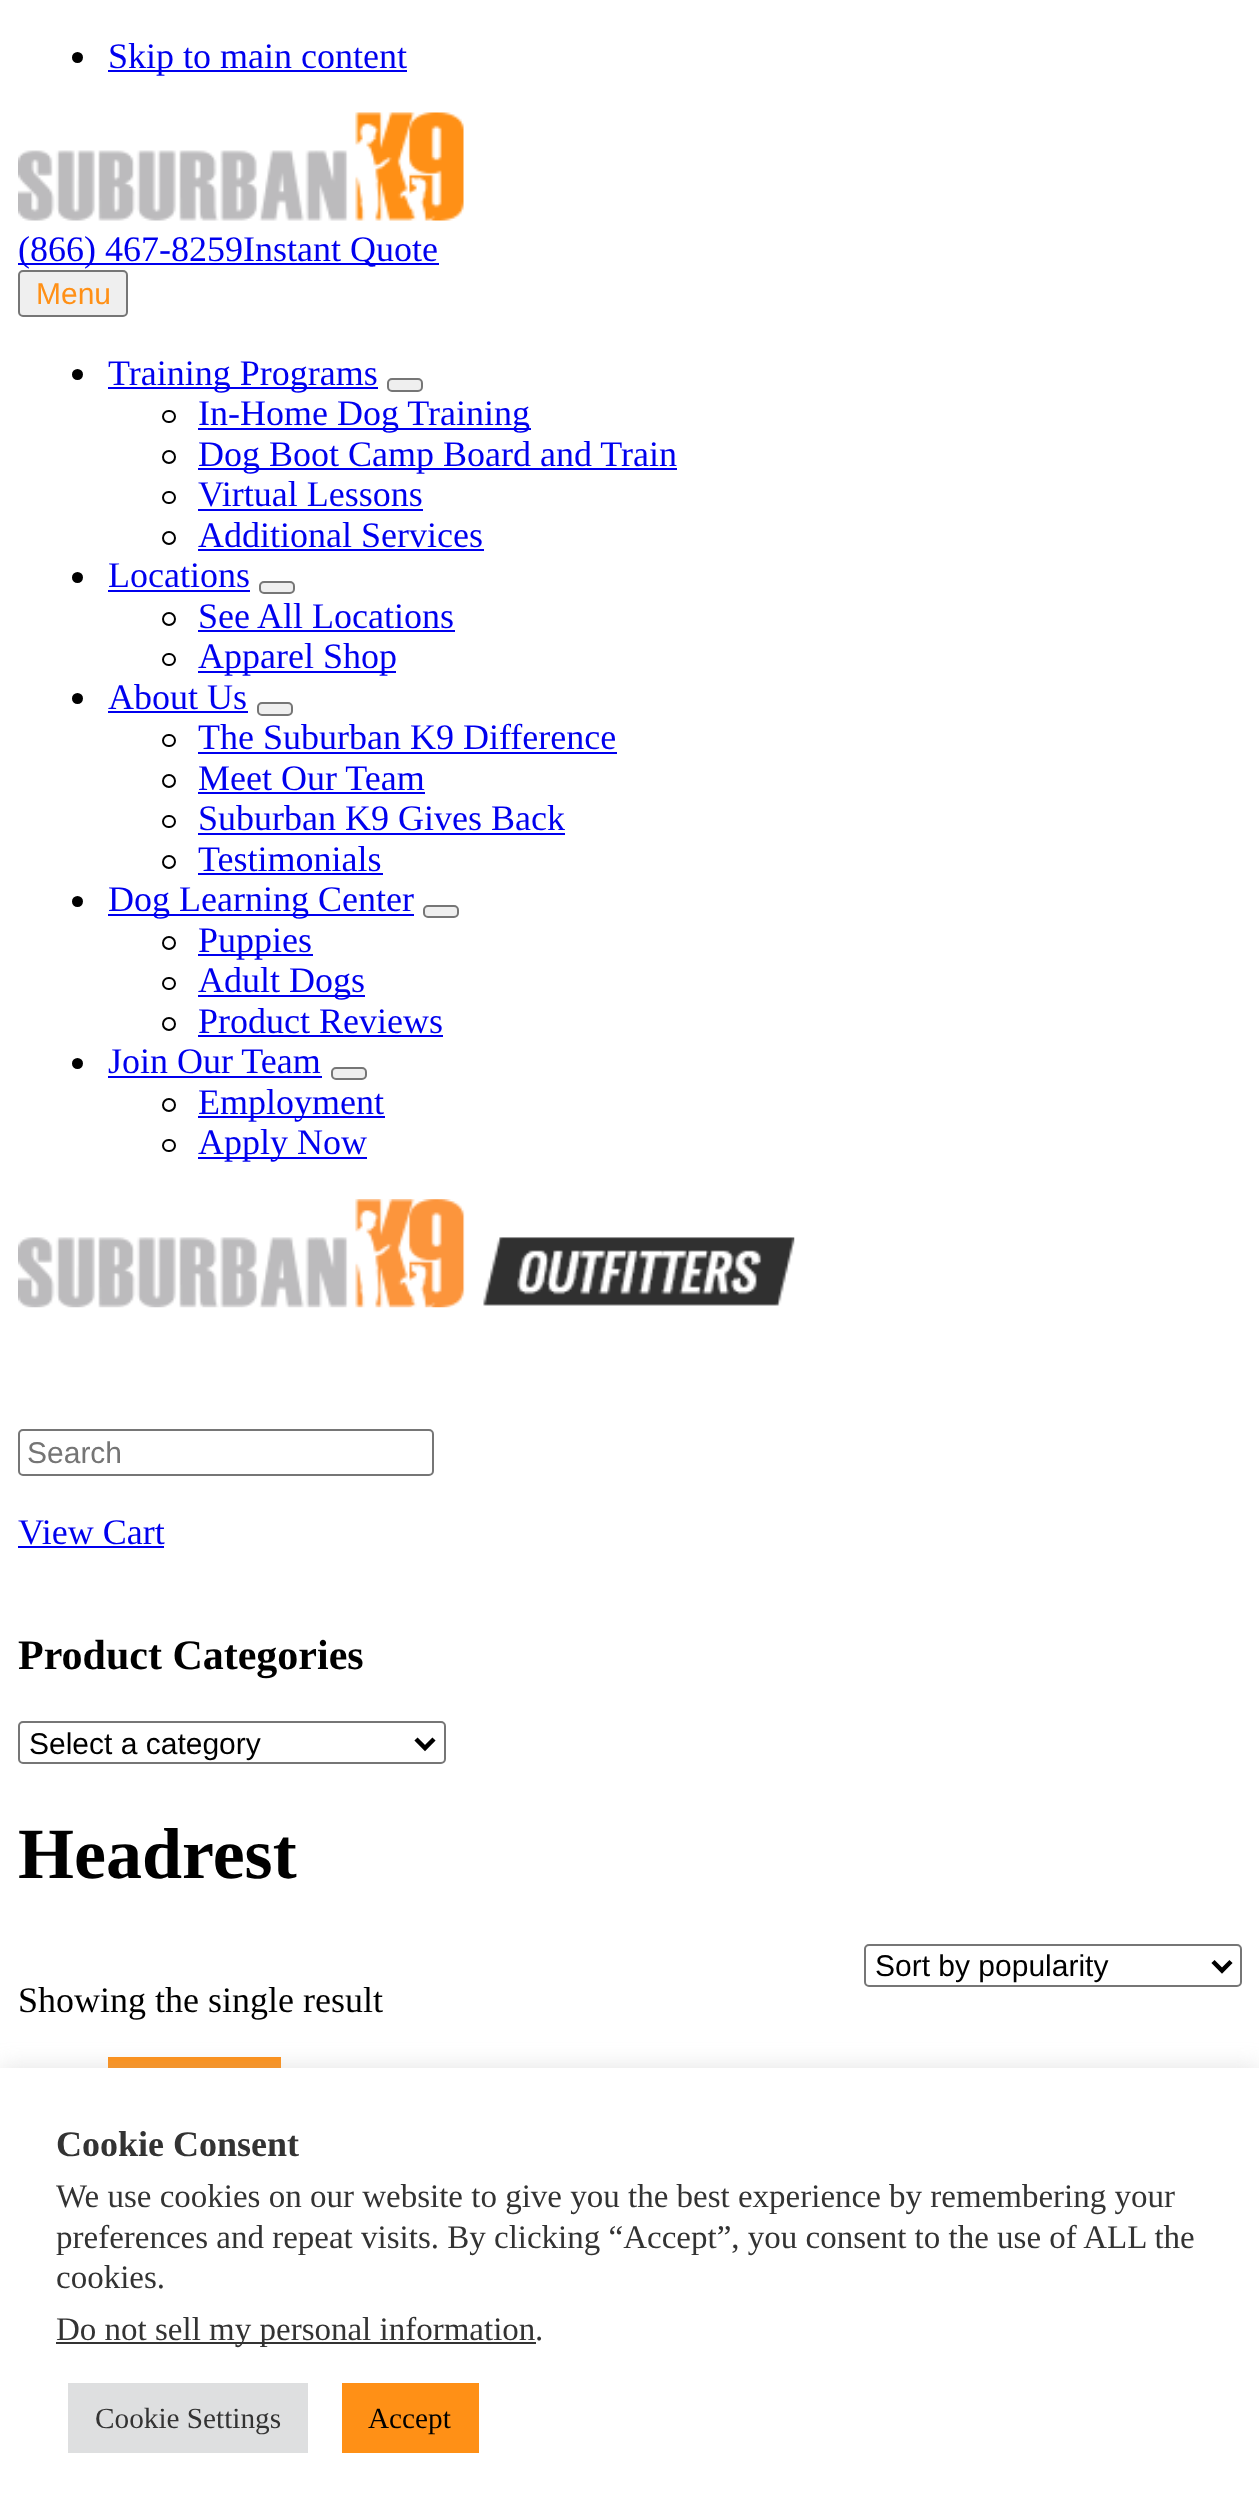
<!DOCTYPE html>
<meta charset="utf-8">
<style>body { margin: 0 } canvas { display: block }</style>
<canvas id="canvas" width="1259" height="2518"></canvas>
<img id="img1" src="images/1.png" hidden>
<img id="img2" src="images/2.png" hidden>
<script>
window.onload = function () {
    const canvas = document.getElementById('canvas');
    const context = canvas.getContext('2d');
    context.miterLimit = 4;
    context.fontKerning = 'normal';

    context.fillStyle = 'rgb(255, 255, 255)';
    context.fillRect(0, 0, 1259, 2518);
    context.fillStyle = 'rgb(0, 0, 0)';
    context.beginPath();
    context.arc(77.5, 57.5, 5.5, 0, 2 * Math.PI);
    context.fill();
    context.fillStyle = 'rgb(0, 0, 238)';
    context.fillRect(108, 70, 299, 2);
    context.drawImage(document.getElementById('img1'), 18, 112, 446, 109);
    context.fillRect(18, 263, 421, 2);
    context.fillStyle = 'rgb(239, 239, 239)';
    context.beginPath();
    context.roundRect(19, 271, 108, 45, 4);
    context.fill();
    context.strokeStyle = 'rgb(118, 118, 118)';
    context.lineWidth = 2;
    context.stroke();
    context.fillStyle = 'rgb(0, 0, 0)';
    context.beginPath();
    context.arc(77.5, 374.5, 5.5, 0, 2 * Math.PI);
    context.fill();
    context.fillStyle = 'rgb(0, 0, 238)';
    context.fillRect(108, 387, 270, 2);
    context.fillStyle = 'rgb(239, 239, 239)';
    context.beginPath();
    context.roundRect(388, 379, 34, 12, 4);
    context.fill();
    context.stroke();
    context.beginPath();
    context.roundRect(163, 411, 12, 11, 5.5);
    context.strokeStyle = 'rgb(0, 0, 0)';
    context.stroke();
    context.fillStyle = 'rgb(0, 0, 238)';
    context.fillRect(198, 428, 333, 2);
    context.beginPath();
    context.arc(169, 457, 6, 0, 2 * Math.PI);
    context.stroke();
    context.fillRect(198, 468, 479, 2);
    context.beginPath();
    context.roundRect(163, 492, 12, 11, 5.5);
    context.stroke();
    context.fillRect(198, 509, 225, 2);
    context.beginPath();
    context.arc(169, 538, 6, 0, 2 * Math.PI);
    context.stroke();
    context.fillRect(198, 549, 286, 2);
    context.fillStyle = 'rgb(0, 0, 0)';
    context.beginPath();
    context.arc(77.5, 577.5, 5.5, 0, 2 * Math.PI);
    context.fill();
    context.fillStyle = 'rgb(0, 0, 238)';
    context.fillRect(108, 590, 142, 2);
    context.fillStyle = 'rgb(239, 239, 239)';
    context.beginPath();
    context.roundRect(260, 582, 34, 11, 4);
    context.fill();
    context.strokeStyle = 'rgb(118, 118, 118)';
    context.stroke();
    context.beginPath();
    context.arc(169, 619, 6, 0, 2 * Math.PI);
    context.strokeStyle = 'rgb(0, 0, 0)';
    context.stroke();
    context.fillStyle = 'rgb(0, 0, 238)';
    context.fillRect(198, 630, 257, 2);
    context.beginPath();
    context.roundRect(163, 654, 12, 11, 5.5);
    context.stroke();
    context.fillRect(198, 671, 198, 2);
    context.fillStyle = 'rgb(0, 0, 0)';
    context.beginPath();
    context.arc(77.5, 698.5, 5.5, 0, 2 * Math.PI);
    context.fill();
    context.fillStyle = 'rgb(0, 0, 238)';
    context.fillRect(108, 711, 140, 2);
    context.fillStyle = 'rgb(239, 239, 239)';
    context.beginPath();
    context.roundRect(258, 703, 34, 12, 4);
    context.fill();
    context.strokeStyle = 'rgb(118, 118, 118)';
    context.stroke();
    context.beginPath();
    context.roundRect(163, 735, 12, 11, 5.5);
    context.strokeStyle = 'rgb(0, 0, 0)';
    context.stroke();
    context.fillStyle = 'rgb(0, 0, 238)';
    context.fillRect(198, 752, 419, 2);
    context.beginPath();
    context.arc(169, 781, 6, 0, 2 * Math.PI);
    context.stroke();
    context.fillRect(198, 792, 227, 2);
    context.beginPath();
    context.roundRect(163, 816, 12, 11, 5.5);
    context.stroke();
    context.fillRect(198, 833, 367, 2);
    context.beginPath();
    context.arc(169, 862, 6, 0, 2 * Math.PI);
    context.stroke();
    context.fillRect(198, 873, 185, 2);
    context.fillStyle = 'rgb(0, 0, 0)';
    context.beginPath();
    context.arc(77.5, 901.5, 5.5, 0, 2 * Math.PI);
    context.fill();
    context.fillStyle = 'rgb(0, 0, 238)';
    context.fillRect(108, 914, 306, 2);
    context.fillStyle = 'rgb(239, 239, 239)';
    context.beginPath();
    context.roundRect(424, 906, 34, 11, 4);
    context.fill();
    context.strokeStyle = 'rgb(118, 118, 118)';
    context.stroke();
    context.beginPath();
    context.arc(169, 943, 6, 0, 2 * Math.PI);
    context.strokeStyle = 'rgb(0, 0, 0)';
    context.stroke();
    context.fillStyle = 'rgb(0, 0, 238)';
    context.fillRect(198, 954, 115, 2);
    context.beginPath();
    context.roundRect(163, 978, 12, 11, 5.5);
    context.stroke();
    context.fillRect(198, 995, 167, 2);
    context.beginPath();
    context.arc(169, 1024, 6, 0, 2 * Math.PI);
    context.stroke();
    context.fillRect(198, 1035, 245, 2);
    context.fillStyle = 'rgb(0, 0, 0)';
    context.beginPath();
    context.arc(77.5, 1063.5, 5.5, 0, 2 * Math.PI);
    context.fill();
    context.fillStyle = 'rgb(0, 0, 238)';
    context.fillRect(108, 1076, 214, 2);
    context.fillStyle = 'rgb(239, 239, 239)';
    context.beginPath();
    context.roundRect(332, 1068, 34, 11, 4);
    context.fill();
    context.strokeStyle = 'rgb(118, 118, 118)';
    context.stroke();
    context.beginPath();
    context.arc(169, 1105, 6, 0, 2 * Math.PI);
    context.strokeStyle = 'rgb(0, 0, 0)';
    context.stroke();
    context.fillStyle = 'rgb(0, 0, 238)';
    context.fillRect(198, 1116, 187, 2);
    context.beginPath();
    context.roundRect(163, 1140, 12, 11, 5.5);
    context.stroke();
    context.fillRect(198, 1157, 169, 2);
    context.drawImage(document.getElementById('img2'), 18, 1199, 777, 109);
    context.beginPath();
    context.roundRect(19, 1430, 414, 45, 4);
    context.strokeStyle = 'rgb(118, 118, 118)';
    context.stroke();
    context.fillRect(18, 1546, 146, 2);
    context.beginPath();
    context.roundRect(19, 1722, 426, 41, 4);
    context.stroke();
    context.beginPath();
    context.moveTo(416, 1739);
    context.lineTo(425, 1748);
    context.lineTo(434, 1739);
    context.strokeStyle = 'rgb(0, 0, 0)';
    context.lineWidth = 4.5;
    context.stroke();
    context.beginPath();
    context.roundRect(865, 1945, 376, 41, 4);
    context.strokeStyle = 'rgb(118, 118, 118)';
    context.lineWidth = 2;
    context.stroke();
    context.beginPath();
    context.moveTo(1213, 1961.5);
    context.lineTo(1222, 1970.5);
    context.lineTo(1231, 1961.5);
    context.strokeStyle = 'rgb(0, 0, 0)';
    context.lineWidth = 4.5;
    context.stroke();
    context.fillStyle = 'rgb(255, 144, 22)';
    context.fillRect(108, 2057, 173, 11);
    context.fillStyle = 'rgba(172, 171, 171, 0.3)';
    context.filter = 'blur(11px)';
    context.beginPath();
    context.rect(0, 2066, 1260, 452);
    context.fill();
    context.filter = 'none';
    context.fillStyle = 'rgb(255, 255, 255)';
    context.fillRect(0, 2068, 1259, 450);
    context.fillStyle = 'rgb(51, 51, 51)';
    context.fillRect(56, 2342, 480, 2);
    context.fillStyle = 'rgb(222, 223, 224)';
    context.fillRect(68, 2383, 240, 70);
    context.fillStyle = 'rgb(255, 144, 22)';
    context.fillRect(342, 2383, 137, 70);
    context.font = '36px Liberation Serif';
    context.fillStyle = 'rgb(0, 0, 238)';
    context.fillText('Skip to main content', 108, 68);
    context.fillText('(866) 467-8259Instant Quote', 18, 261);
    context.font = '30px Liberation Sans';
    context.fillStyle = 'rgb(255, 144, 22)';
    context.fillText('Menu', 36, 304);
    context.font = '36px Liberation Serif';
    context.fillStyle = 'rgb(0, 0, 238)';
    context.fillText('Training Programs', 108, 385);
    context.fillText('In-Home Dog Training', 198, 425);
    context.fillText('Dog Boot Camp Board and Train', 198, 466);
    context.fillText('Virtual Lessons', 198, 506);
    context.fillText('Additional Services', 198, 547);
    context.fillText('Locations', 108, 587);
    context.fillText('See All Locations', 198, 628);
    context.fillText('Apparel Shop', 198, 668);
    context.fillText('About Us', 108, 709);
    context.fillText('The Suburban K9 Difference', 198, 749);
    context.fillText('Meet Our Team', 198, 790);
    context.fillText('Suburban K9 Gives Back', 198, 830);
    context.fillText('Testimonials', 198, 871);
    context.fillText('Dog Learning Center', 108, 911);
    context.fillText('Puppies', 198, 952);
    context.fillText('Adult Dogs', 198, 992);
    context.fillText('Product Reviews', 198, 1033);
    context.fillText('Join Our Team', 108, 1073);
    context.fillText('Employment', 198, 1114);
    context.fillText('Apply Now', 198, 1154);
    context.font = '30px Liberation Sans';
    context.fillStyle = 'rgb(117, 117, 117)';
    context.fillText('Search', 27, 1463);
    context.font = '36px Liberation Serif';
    context.fillStyle = 'rgb(0, 0, 238)';
    context.fillText('View Cart', 18, 1544);
    context.font = 'bold 42px Liberation Serif';
    context.fillStyle = 'rgb(0, 0, 0)';
    context.fillText('Product Categories', 18, 1669);
    context.font = '30px Liberation Sans';
    context.fillText('Select a category', 29, 1754);
    context.font = 'bold 72px Liberation Serif';
    context.fillText('Headrest', 18, 1878);
    context.font = '30px Liberation Sans';
    context.fillText('Sort by popularity', 875, 1976);
    context.font = '36px Liberation Serif';
    context.fillText('Showing the single result', 18, 2012);
    context.font = 'bold 36px Liberation Serif';
    context.fillStyle = 'rgb(51, 51, 51)';
    context.fillText('Cookie Consent', 56, 2156);
    context.font = '33px Liberation Serif';
    context.fillText('We use cookies on our website to give you the best experience by remembering your', 56, 2207);
    context.fillText('preferences and repeat visits. By clicking “Accept”, you consent to the use of ALL the', 56, 2248);
    context.fillText('cookies.', 56, 2288);
    context.fillText('Do not sell my personal information', 56, 2340);
    context.fillText('.', 535, 2340);
    context.font = '29.25px Liberation Serif';
    context.fillText('Cookie Settings', 95, 2428);
    context.fillStyle = 'rgb(0, 0, 0)';
    context.fillText('Accept', 368, 2428);
};
</script>
